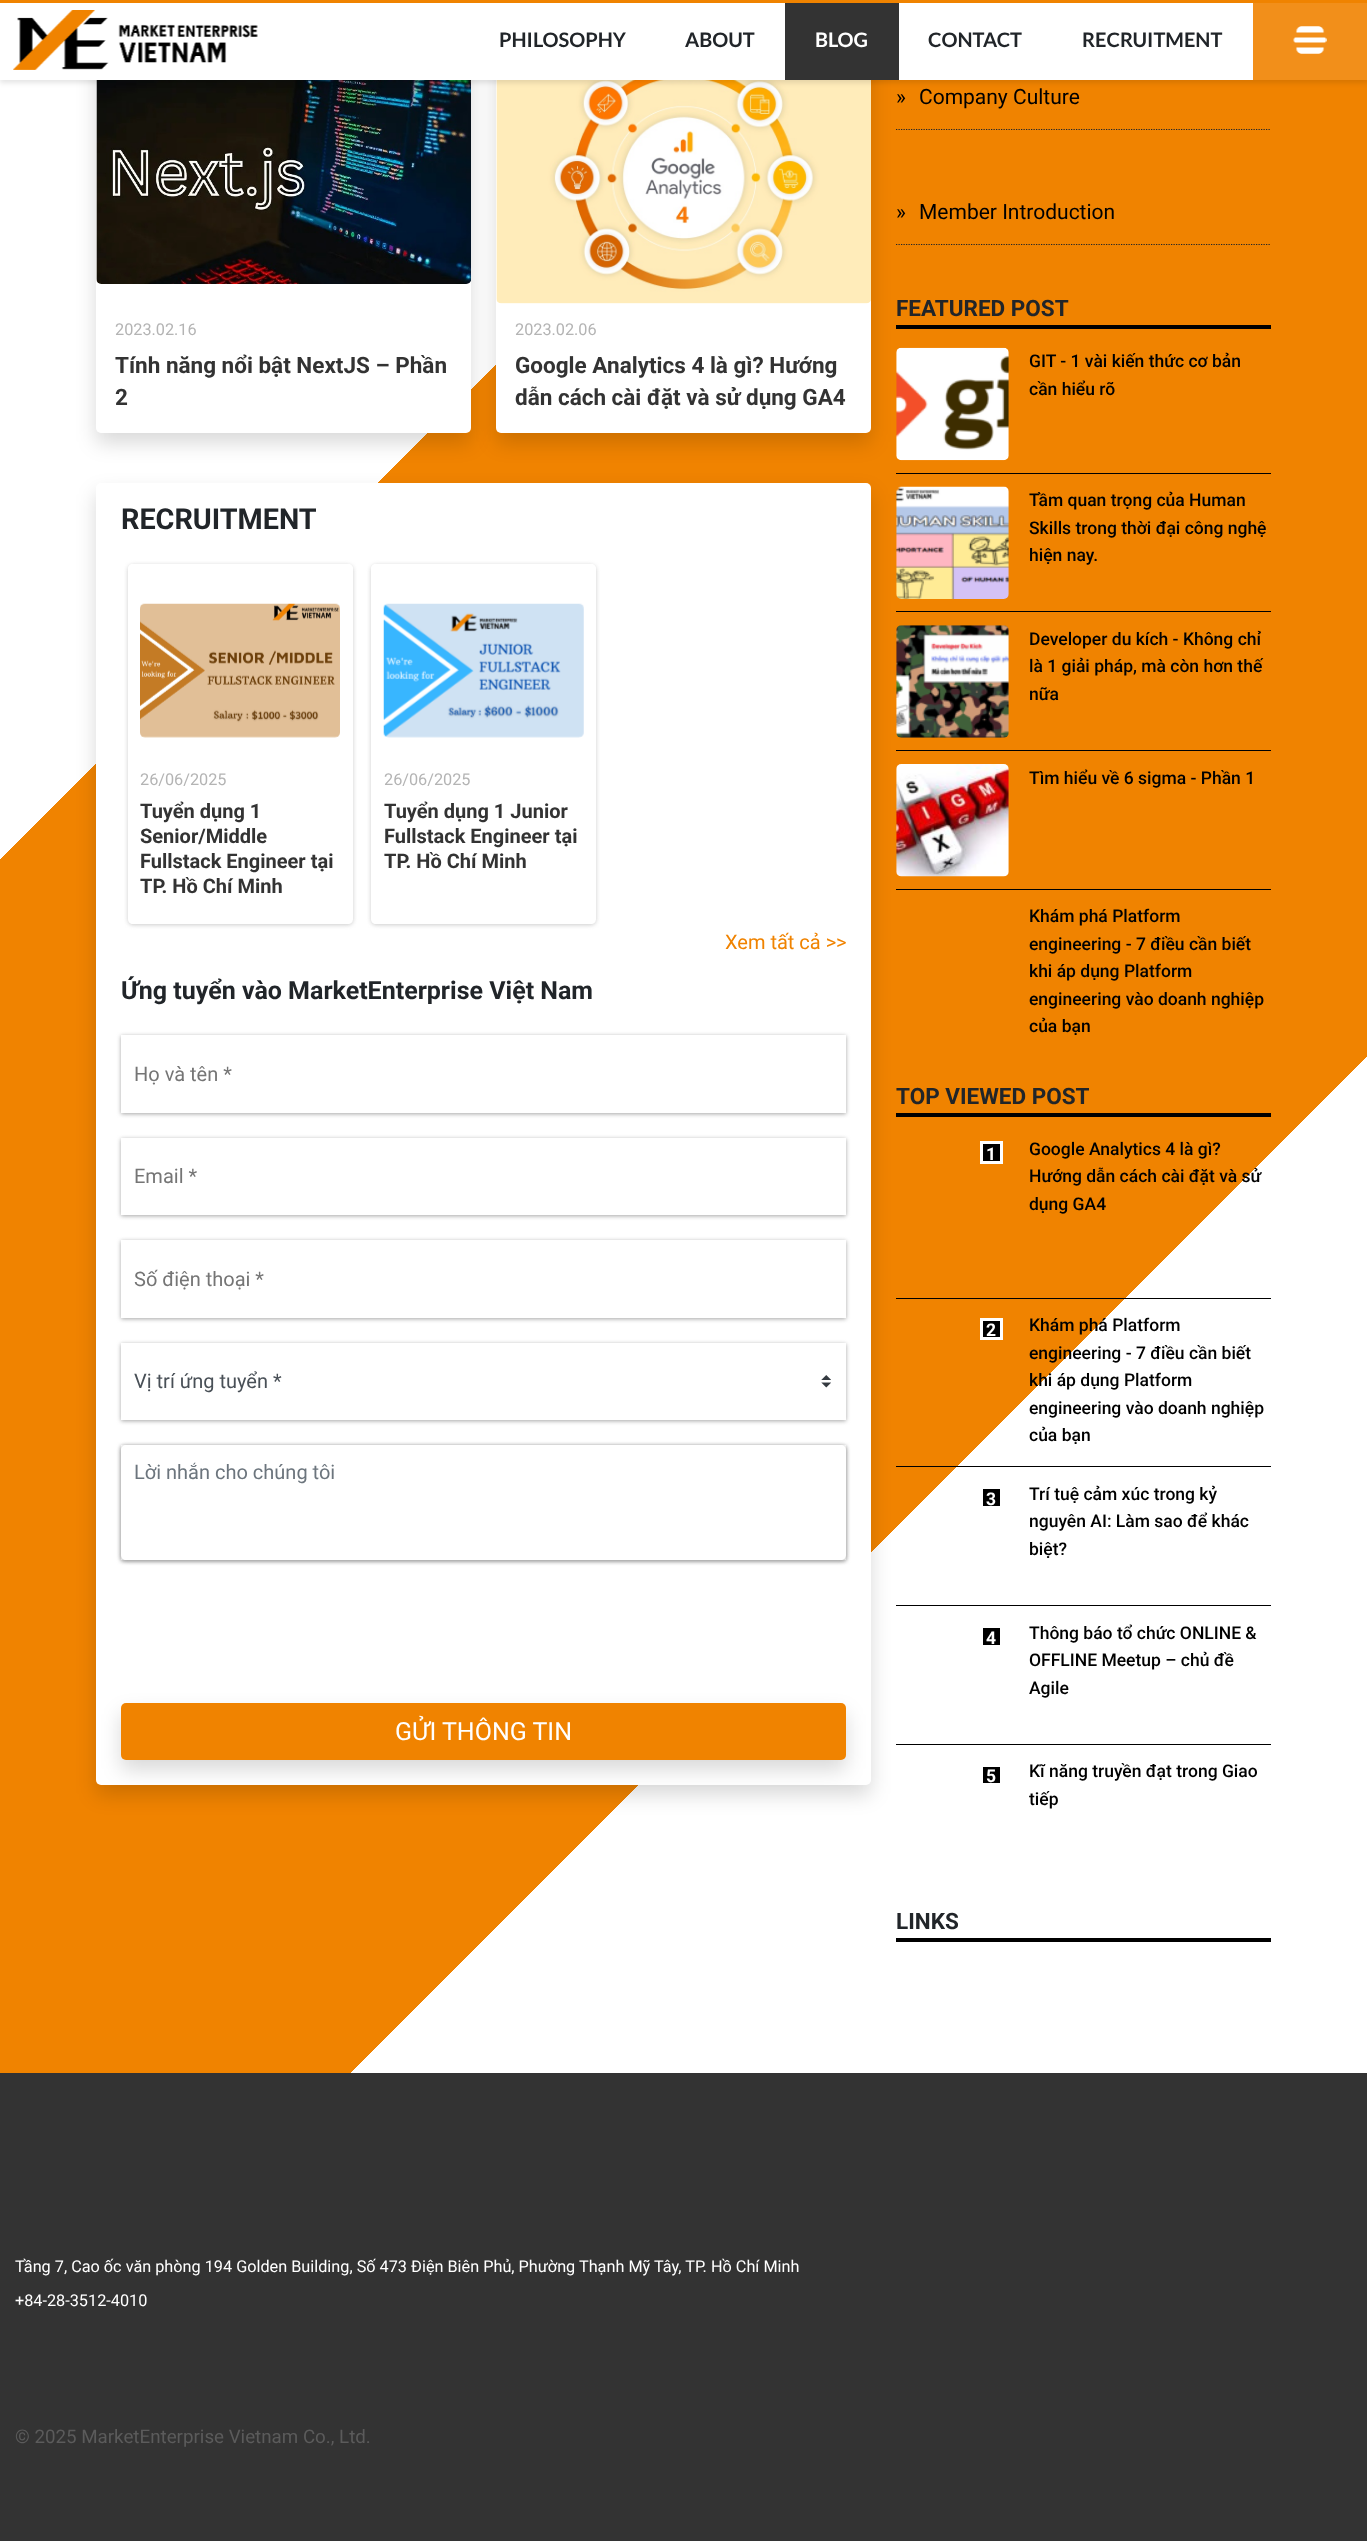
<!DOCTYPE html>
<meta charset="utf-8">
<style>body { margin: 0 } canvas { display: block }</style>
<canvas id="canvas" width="1367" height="2541"></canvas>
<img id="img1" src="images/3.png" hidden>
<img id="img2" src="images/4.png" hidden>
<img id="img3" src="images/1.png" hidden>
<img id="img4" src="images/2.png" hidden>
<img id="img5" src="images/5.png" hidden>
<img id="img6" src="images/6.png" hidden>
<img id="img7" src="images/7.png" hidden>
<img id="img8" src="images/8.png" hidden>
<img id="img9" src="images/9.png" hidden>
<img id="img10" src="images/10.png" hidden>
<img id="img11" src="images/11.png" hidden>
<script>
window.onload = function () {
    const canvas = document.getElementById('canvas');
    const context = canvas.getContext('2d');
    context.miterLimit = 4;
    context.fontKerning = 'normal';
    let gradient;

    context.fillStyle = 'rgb(255, 255, 255)';
    context.fillRect(0, 0, 1367, 2541);
    gradient = context.createLinearGradient(-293, 293, 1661, 2248);
    gradient.addColorStop(0, 'rgb(255, 255, 255)');
    gradient.addColorStop(0.22, 'rgb(255, 255, 255)');
    gradient.addColorStop(0.22, 'rgb(240, 131, 0)');
    gradient.addColorStop(0.62, 'rgb(240, 131, 0)');
    gradient.addColorStop(0.62, 'rgb(255, 255, 255)');
    gradient.addColorStop(1, 'rgb(255, 255, 255)');
    context.fillStyle = gradient;
    context.fillRect(0, 80, 1367, 1993);
    context.fillStyle = 'rgba(0, 0, 0, 0.15)';
    context.filter = 'blur(10px)';
    context.beginPath();
    context.roundRect(96, 60, 375, 383, 5);
    context.fill();
    context.filter = 'none';
    context.fillStyle = 'rgb(255, 255, 255)';
    context.beginPath();
    context.roundRect(96, 50, 375, 383, 5);
    context.fill();
    context.drawImage(document.getElementById('img1'), 96, 80, 375, 204);
    context.fillStyle = 'rgba(0, 0, 0, 0.15)';
    context.filter = 'blur(10px)';
    context.beginPath();
    context.roundRect(496, 60, 375, 383, 5);
    context.fill();
    context.filter = 'none';
    context.fillStyle = 'rgb(255, 255, 255)';
    context.beginPath();
    context.roundRect(496, 50, 375, 383, 5);
    context.fill();
    context.drawImage(document.getElementById('img2'), 496, 80, 375, 224);
    context.fillStyle = 'rgba(0, 0, 0, 0.1)';
    context.filter = 'blur(2.5px)';
    context.beginPath();
    context.rect(0, 3, 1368, 80);
    context.fill();
    context.filter = 'none';
    context.fillStyle = 'rgb(240, 131, 0)';
    context.fillRect(0, 0, 1367, 3);
    context.fillStyle = 'rgb(255, 255, 255)';
    context.fillRect(0, 3, 1253, 77);
    context.drawImage(document.getElementById('img3'), 13, 10, 245, 60);
    context.fillStyle = 'rgb(51, 51, 51)';
    context.fillRect(785, 3, 114, 77);
    context.fillStyle = 'rgb(242, 143, 26)';
    context.fillRect(1253, 3, 114, 77);
    context.drawImage(document.getElementById('img4'), 1293, 26, 34, 28);
    context.fillStyle = 'rgba(0, 0, 0, 0.15)';
    context.filter = 'blur(10px)';
    context.beginPath();
    context.roundRect(96, 493, 775, 1302, 5);
    context.fill();
    context.filter = 'none';
    context.fillStyle = 'rgb(255, 255, 255)';
    context.beginPath();
    context.roundRect(96, 483, 775, 1302, 5);
    context.fill();
    context.save();
    context.beginPath();
    context.moveTo(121, 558);
    context.lineTo(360, 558);
    context.lineTo(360, 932);
    context.lineTo(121, 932);
    context.closePath();
    context.moveTo(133, 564);
    context.lineTo(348, 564);
    context.bezierCurveTo(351, 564, 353, 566, 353, 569);
    context.lineTo(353, 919);
    context.bezierCurveTo(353, 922, 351, 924, 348, 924);
    context.lineTo(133, 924);
    context.bezierCurveTo(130, 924, 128, 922, 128, 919);
    context.lineTo(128, 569);
    context.bezierCurveTo(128, 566, 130, 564, 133, 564);
    context.closePath();
    context.clip('evenodd');
    context.fillStyle = 'rgb(204, 204, 204)';
    context.filter = 'blur(2px)';
    context.beginPath();
    context.roundRect(128, 565, 225, 360, 5);
    context.fill();
    context.filter = 'none';
    context.restore();
    context.beginPath();
    context.roundRect(128, 564, 225, 347, 5);
    context.fill();
    context.drawImage(document.getElementById('img5'), 140, 603, 200, 135);
    context.save();
    context.beginPath();
    context.moveTo(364, 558);
    context.lineTo(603, 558);
    context.lineTo(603, 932);
    context.lineTo(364, 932);
    context.closePath();
    context.moveTo(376, 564);
    context.lineTo(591, 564);
    context.bezierCurveTo(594, 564, 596, 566, 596, 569);
    context.lineTo(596, 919);
    context.bezierCurveTo(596, 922, 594, 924, 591, 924);
    context.lineTo(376, 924);
    context.bezierCurveTo(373, 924, 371, 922, 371, 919);
    context.lineTo(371, 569);
    context.bezierCurveTo(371, 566, 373, 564, 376, 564);
    context.closePath();
    context.clip('evenodd');
    context.fillStyle = 'rgb(204, 204, 204)';
    context.filter = 'blur(2px)';
    context.beginPath();
    context.roundRect(371, 565, 225, 360, 5);
    context.fill();
    context.filter = 'none';
    context.restore();
    context.beginPath();
    context.roundRect(371, 564, 225, 322, 5);
    context.fill();
    context.drawImage(document.getElementById('img6'), 383, 603, 201, 135);
    context.save();
    context.beginPath();
    context.moveTo(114, 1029);
    context.lineTo(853, 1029);
    context.lineTo(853, 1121);
    context.lineTo(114, 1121);
    context.closePath();
    context.moveTo(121, 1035);
    context.lineTo(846, 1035);
    context.lineTo(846, 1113);
    context.lineTo(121, 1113);
    context.closePath();
    context.clip('evenodd');
    context.fillStyle = 'rgb(165, 165, 165)';
    context.filter = 'blur(2px)';
    context.beginPath();
    context.rect(121, 1036, 725, 78);
    context.fill();
    context.filter = 'none';
    context.restore();
    context.save();
    context.beginPath();
    context.moveTo(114, 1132);
    context.lineTo(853, 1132);
    context.lineTo(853, 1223);
    context.lineTo(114, 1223);
    context.closePath();
    context.moveTo(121, 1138);
    context.lineTo(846, 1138);
    context.lineTo(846, 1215);
    context.lineTo(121, 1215);
    context.closePath();
    context.clip('evenodd');
    context.fillStyle = 'rgb(165, 165, 165)';
    context.filter = 'blur(2px)';
    context.beginPath();
    context.rect(121, 1139, 725, 77);
    context.fill();
    context.filter = 'none';
    context.restore();
    context.save();
    context.beginPath();
    context.moveTo(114, 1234);
    context.lineTo(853, 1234);
    context.lineTo(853, 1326);
    context.lineTo(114, 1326);
    context.closePath();
    context.moveTo(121, 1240);
    context.lineTo(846, 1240);
    context.lineTo(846, 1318);
    context.lineTo(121, 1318);
    context.closePath();
    context.clip('evenodd');
    context.fillStyle = 'rgb(165, 165, 165)';
    context.filter = 'blur(2px)';
    context.beginPath();
    context.rect(121, 1241, 725, 78);
    context.fill();
    context.filter = 'none';
    context.restore();
    context.save();
    context.beginPath();
    context.moveTo(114, 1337);
    context.lineTo(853, 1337);
    context.lineTo(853, 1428);
    context.lineTo(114, 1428);
    context.closePath();
    context.moveTo(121, 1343);
    context.lineTo(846, 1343);
    context.lineTo(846, 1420);
    context.lineTo(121, 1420);
    context.closePath();
    context.clip('evenodd');
    context.fillStyle = 'rgb(165, 165, 165)';
    context.filter = 'blur(2px)';
    context.beginPath();
    context.rect(121, 1344, 725, 77);
    context.fill();
    context.filter = 'none';
    context.restore();
    context.drawImage(document.getElementById('img7'), 821, 1375, 10, 13);
    context.save();
    context.beginPath();
    context.moveTo(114, 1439);
    context.lineTo(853, 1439);
    context.lineTo(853, 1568);
    context.lineTo(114, 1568);
    context.closePath();
    context.moveTo(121, 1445);
    context.lineTo(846, 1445);
    context.lineTo(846, 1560);
    context.lineTo(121, 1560);
    context.closePath();
    context.clip('evenodd');
    context.fillStyle = 'rgb(165, 165, 165)';
    context.filter = 'blur(2px)';
    context.beginPath();
    context.rect(121, 1446, 725, 115);
    context.fill();
    context.filter = 'none';
    context.restore();
    context.save();
    context.beginPath();
    context.moveTo(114, 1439);
    context.lineTo(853, 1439);
    context.lineTo(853, 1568);
    context.lineTo(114, 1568);
    context.closePath();
    context.moveTo(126, 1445);
    context.lineTo(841, 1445);
    context.bezierCurveTo(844, 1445, 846, 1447, 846, 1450);
    context.lineTo(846, 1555);
    context.bezierCurveTo(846, 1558, 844, 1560, 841, 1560);
    context.lineTo(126, 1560);
    context.bezierCurveTo(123, 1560, 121, 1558, 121, 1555);
    context.lineTo(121, 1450);
    context.bezierCurveTo(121, 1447, 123, 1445, 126, 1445);
    context.closePath();
    context.clip('evenodd');
    context.fillStyle = 'rgb(165, 165, 165)';
    context.filter = 'blur(2px)';
    context.beginPath();
    context.roundRect(121, 1446, 725, 115, 5);
    context.fill();
    context.filter = 'none';
    context.restore();
    context.fillStyle = 'rgba(0, 0, 0, 0.15)';
    context.filter = 'blur(10px)';
    context.beginPath();
    context.roundRect(121, 1713, 725, 57, 5);
    context.fill();
    context.filter = 'none';
    context.fillStyle = 'rgb(240, 131, 0)';
    context.beginPath();
    context.roundRect(121, 1703, 725, 57, 5);
    context.fill();
    context.beginPath();
    context.moveTo(896, 129.5);
    context.lineTo(1271, 129.5);
    context.strokeStyle = 'rgb(33, 37, 41)';
    context.lineWidth = 1.2;
    context.setLineDash([1.25, 1.25]);
    context.stroke();
    context.beginPath();
    context.moveTo(896, 244.5);
    context.lineTo(1271, 244.5);
    context.stroke();
    context.fillStyle = 'rgb(0, 0, 0)';
    context.fillRect(896, 325, 375, 4);
    context.fillRect(896, 473, 375, 1);
    context.drawImage(document.getElementById('img8'), 896, 347, 113, 114);
    context.fillRect(896, 611, 375, 1);
    context.drawImage(document.getElementById('img9'), 896, 486, 113, 113);
    context.fillRect(896, 750, 375, 1);
    context.drawImage(document.getElementById('img10'), 896, 625, 113, 113);
    context.fillRect(896, 889, 375, 1);
    context.drawImage(document.getElementById('img11'), 896, 764, 113, 113);
    context.fillRect(896, 1113, 375, 4);
    context.fillRect(896, 1298, 375, 1);
    context.beginPath();
    context.rect(981.5, 1142.5, 20, 20);
    context.fill();
    context.strokeStyle = 'rgb(255, 255, 255)';
    context.lineWidth = 3;
    context.setLineDash([]);
    context.stroke();
    context.fillRect(896, 1466, 375, 1);
    context.beginPath();
    context.rect(981.5, 1319.5, 20, 19);
    context.fill();
    context.stroke();
    context.fillRect(896, 1605, 375, 1);
    context.fillRect(983, 1489, 17, 17);
    context.fillRect(896, 1744, 375, 1);
    context.fillRect(983, 1628, 17, 17);
    context.fillRect(983, 1767, 17, 16);
    context.fillRect(896, 1938, 375, 4);
    context.fillStyle = 'rgb(51, 51, 51)';
    context.fillRect(0, 2073, 1367, 468);
    context.font = 'bold 20px Lato';
    context.fillStyle = 'rgb(33, 37, 41)';
    context.fillText('PHILOSOPHY', 499, 47);
    context.fillText('ABOUT', 685, 47);
    context.fillStyle = 'rgb(255, 255, 255)';
    context.fillText('BLOG', 815, 47);
    context.fillStyle = 'rgb(33, 37, 41)';
    context.fillText('CONTACT', 928, 47);
    context.fillText('RECRUITMENT', 1082, 47);
    context.font = '16.25px Roboto';
    context.fillStyle = 'rgb(180, 180, 180)';
    context.fillText('2023.02.16', 115, 335);
    context.font = 'bold 22.5px Roboto';
    context.fillStyle = 'rgb(51, 51, 51)';
    context.fillText('Tính năng nổi bật NextJS – Phần', 115, 373);
    context.fillText('2', 115, 405);
    context.font = '16.25px Roboto';
    context.fillStyle = 'rgb(180, 180, 180)';
    context.fillText('2023.02.06', 515, 335);
    context.font = 'bold 22.5px Roboto';
    context.fillStyle = 'rgb(51, 51, 51)';
    context.fillText('Google Analytics 4 là gì? Hướng', 515, 373);
    context.fillText('dẫn cách cài đặt và sử dụng GA4', 515, 405);
    context.font = 'bold 28.75px Roboto';
    context.fillStyle = 'rgb(33, 37, 41)';
    context.fillText('RECRUITMENT', 121, 529);
    context.font = '16.25px Roboto';
    context.fillStyle = 'rgb(180, 180, 180)';
    context.fillText('26/06/2025', 140, 785);
    context.font = 'bold 20px Roboto';
    context.fillStyle = 'rgb(51, 51, 51)';
    context.fillText('Tuyển dụng 1', 140, 818);
    context.fillText('Senior/Middle', 140, 843);
    context.fillText('Fullstack Engineer tại', 140, 868);
    context.fillText('TP. Hồ Chí Minh', 140, 893);
    context.font = '16.25px Roboto';
    context.fillStyle = 'rgb(180, 180, 180)';
    context.fillText('26/06/2025', 384, 785);
    context.font = 'bold 20px Roboto';
    context.fillStyle = 'rgb(51, 51, 51)';
    context.fillText('Tuyển dụng 1 Junior', 384, 818);
    context.fillText('Fullstack Engineer tại', 384, 843);
    context.fillText('TP. Hồ Chí Minh', 384, 868);
    context.font = '20px Roboto';
    context.fillStyle = 'rgb(240, 131, 0)';
    context.fillText('Xem tất cả >>', 725, 949);
    context.font = 'bold 25px Roboto';
    context.fillStyle = 'rgb(33, 37, 41)';
    context.fillText('Ứng tuyển vào MarketEnterprise Việt Nam', 121, 999);
    context.font = '20px Roboto';
    context.fillStyle = 'rgb(117, 117, 117)';
    context.fillText('Họ và tên *', 134, 1081);
    context.fillText('Email *', 134, 1183);
    context.fillText('Số điện thoại *', 134, 1286);
    context.fillStyle = 'rgb(73, 80, 87)';
    context.fillText('Vị trí ứng tuyển *', 134, 1388);
    context.fillStyle = 'rgb(108, 117, 125)';
    context.fillText('Lời nhắn cho chúng tôi', 134, 1479);
    context.font = '25px Roboto';
    context.fillStyle = 'rgb(255, 255, 255)';
    context.fillText('GỬI THÔNG TIN', 395, 1740);
    context.font = '21px Roboto';
    context.fillStyle = 'rgb(0, 0, 0)';
    context.fillText('»', 896, 104);
    context.fillText('Company Culture', 919, 104);
    context.fillText('»', 896, 219);
    context.fillText('Member Introduction', 919, 219);
    context.font = 'bold 22.5px Roboto';
    context.fillStyle = 'rgb(33, 37, 41)';
    context.fillText('FEATURED POST', 896, 316);
    context.font = '500 17.5px Roboto';
    context.fillStyle = 'rgb(0, 0, 0)';
    context.fillText('GIT - 1 vài kiến thức cơ bản', 1029, 367);
    context.fillText('cần hiểu rõ', 1029, 395);
    context.fillText('Tầm quan trọng của Human', 1029, 506);
    context.fillText('Skills trong thời đại công nghệ', 1029, 534);
    context.fillText('hiện nay.', 1029, 561);
    context.fillText('Developer du kích - Không chỉ', 1029, 645);
    context.fillText('là 1 giải pháp, mà còn hơn thế', 1029, 672);
    context.fillText('nữa', 1029, 700);
    context.fillText('Tìm hiểu về 6 sigma - Phần 1', 1029, 784);
    context.fillText('Khám phá Platform', 1029, 922);
    context.fillText('engineering - 7 điều cần biết', 1029, 950);
    context.fillText('khi áp dụng Platform', 1029, 977);
    context.fillText('engineering vào doanh nghiệp', 1029, 1005);
    context.fillText('của bạn', 1029, 1032);
    context.font = 'bold 22.5px Roboto';
    context.fillStyle = 'rgb(33, 37, 41)';
    context.fillText('TOP VIEWED POST', 896, 1104);
    context.font = 'bold 17.5px Roboto';
    context.fillStyle = 'rgb(255, 255, 255)';
    context.fillText('1', 986, 1160);
    context.font = '500 17.5px Roboto';
    context.fillStyle = 'rgb(0, 0, 0)';
    context.fillText('Google Analytics 4 là gì?', 1029, 1155);
    context.fillText('Hướng dẫn cách cài đặt và sử', 1029, 1182);
    context.fillText('dụng GA4', 1029, 1210);
    context.font = 'bold 17.5px Roboto';
    context.fillStyle = 'rgb(255, 255, 255)';
    context.fillText('2', 986, 1336);
    context.font = '500 17.5px Roboto';
    context.fillStyle = 'rgb(0, 0, 0)';
    context.fillText('Khám phá Platform', 1029, 1331);
    context.fillText('engineering - 7 điều cần biết', 1029, 1359);
    context.fillText('khi áp dụng Platform', 1029, 1386);
    context.fillText('engineering vào doanh nghiệp', 1029, 1414);
    context.fillText('của bạn', 1029, 1441);
    context.font = 'bold 17.5px Roboto';
    context.fillStyle = 'rgb(255, 255, 255)';
    context.fillText('3', 986, 1505);
    context.font = '500 17.5px Roboto';
    context.fillStyle = 'rgb(0, 0, 0)';
    context.fillText('Trí tuệ cảm xúc trong kỷ', 1029, 1500);
    context.fillText('nguyên AI: Làm sao để khác', 1029, 1527);
    context.fillText('biệt?', 1029, 1555);
    context.font = 'bold 17.5px Roboto';
    context.fillStyle = 'rgb(255, 255, 255)';
    context.fillText('4', 986, 1644);
    context.font = '500 17.5px Roboto';
    context.fillStyle = 'rgb(0, 0, 0)';
    context.fillText('Thông báo tổ chức ONLINE &', 1029, 1639);
    context.fillText('OFFLINE Meetup – chủ đề', 1029, 1666);
    context.fillText('Agile', 1029, 1694);
    context.font = 'bold 17.5px Roboto';
    context.fillStyle = 'rgb(255, 255, 255)';
    context.fillText('5', 986, 1782);
    context.font = '500 17.5px Roboto';
    context.fillStyle = 'rgb(0, 0, 0)';
    context.fillText('Kĩ năng truyền đạt trong Giao', 1029, 1777);
    context.fillText('tiếp', 1029, 1805);
    context.font = 'bold 22.5px Roboto';
    context.fillStyle = 'rgb(33, 37, 41)';
    context.fillText('LINKS', 896, 1929);
    context.font = '16.25px Roboto';
    context.fillStyle = 'rgb(255, 255, 255)';
    context.fillText('Tầng 7, Cao ốc văn phòng 194 Golden Building, Số 473 Điện Biên Phủ, Phường Thạnh Mỹ Tây, TP. Hồ Chí Minh', 15, 2272);
    context.fillText('+84-28-3512-4010', 15, 2306);
    context.font = '18.75px Roboto';
    context.fillStyle = 'rgb(91, 91, 91)';
    context.fillText('© 2025 MarketEnterprise Vietnam Co., Ltd.', 15, 2443);
};
</script>
